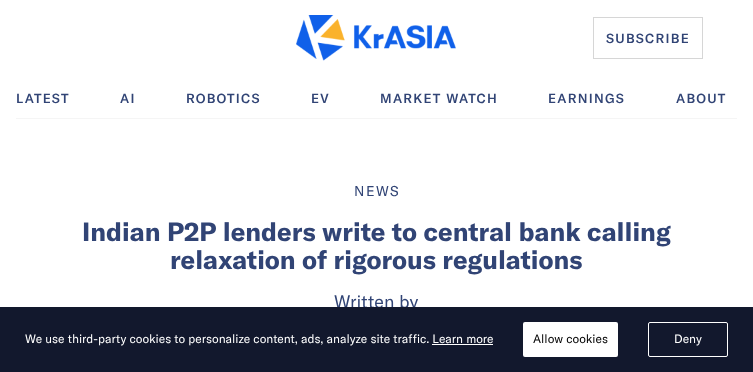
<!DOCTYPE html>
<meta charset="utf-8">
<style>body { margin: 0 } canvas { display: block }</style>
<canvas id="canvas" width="753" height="372"></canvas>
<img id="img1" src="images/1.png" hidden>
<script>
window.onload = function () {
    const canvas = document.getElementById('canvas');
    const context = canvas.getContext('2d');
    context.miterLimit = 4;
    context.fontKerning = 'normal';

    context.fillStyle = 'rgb(255, 255, 255)';
    context.fillRect(0, 0, 753, 372);
    context.drawImage(document.getElementById('img1'), 296, 15, 160, 46);
    context.strokeStyle = 'rgb(214, 214, 214)';
    context.strokeRect(593.5, 17.5, 109, 41);
    context.fillStyle = 'rgb(245, 245, 245)';
    context.fillRect(16, 118, 721, 1);
    context.letterSpacing = '1.25px';
    context.font = '500 13px GT America';
    context.fillStyle = 'rgb(49, 68, 117)';
    context.fillText('SUBSCRIBE', 606, 43);
    context.fillText('LATEST', 16, 103);
    context.fillText('AI', 120, 103);
    context.fillText('ROBOTICS', 186, 103);
    context.fillText('EV', 311, 103);
    context.fillText('MARKET WATCH', 380, 103);
    context.fillText('EARNINGS', 548, 103);
    context.fillText('ABOUT', 676, 103);
    context.letterSpacing = '1.5px';
    context.font = '14px GT America';
    context.fillText('NEWS', 354, 196);
    context.letterSpacing = '0px';
    context.font = 'bold 26px GT America';
    context.fillText('Indian P2P lenders write to central bank calling', 82, 241);
    context.fillText('relaxation of rigorous regulations', 170, 269);
    context.font = '18px GT America';
    context.fillText('Written by', 334, 308);
    context.fillStyle = 'rgb(18, 24, 45)';
    context.fillRect(0, 307, 753, 65);
    context.font = '12px GT America';
    context.fillStyle = 'rgb(255, 255, 255)';
    context.fillText('We use third-party cookies to personalize content, ads, analyze site traffic. Learn more', 25, 343);
    context.fillRect(432, 344, 61, 1);
    context.beginPath();
    context.roundRect(523, 322, 95, 35, 2);
    context.fill();
    context.fillStyle = 'rgb(0, 0, 0)';
    context.fillText('Allow cookies', 533, 343);
    context.beginPath();
    context.roundRect(648.5, 322.5, 79, 34, 1.5);
    context.strokeStyle = 'rgb(255, 255, 255)';
    context.stroke();
    context.fillStyle = 'rgb(255, 255, 255)';
    context.fillText('Deny', 674, 343);
};
</script>
